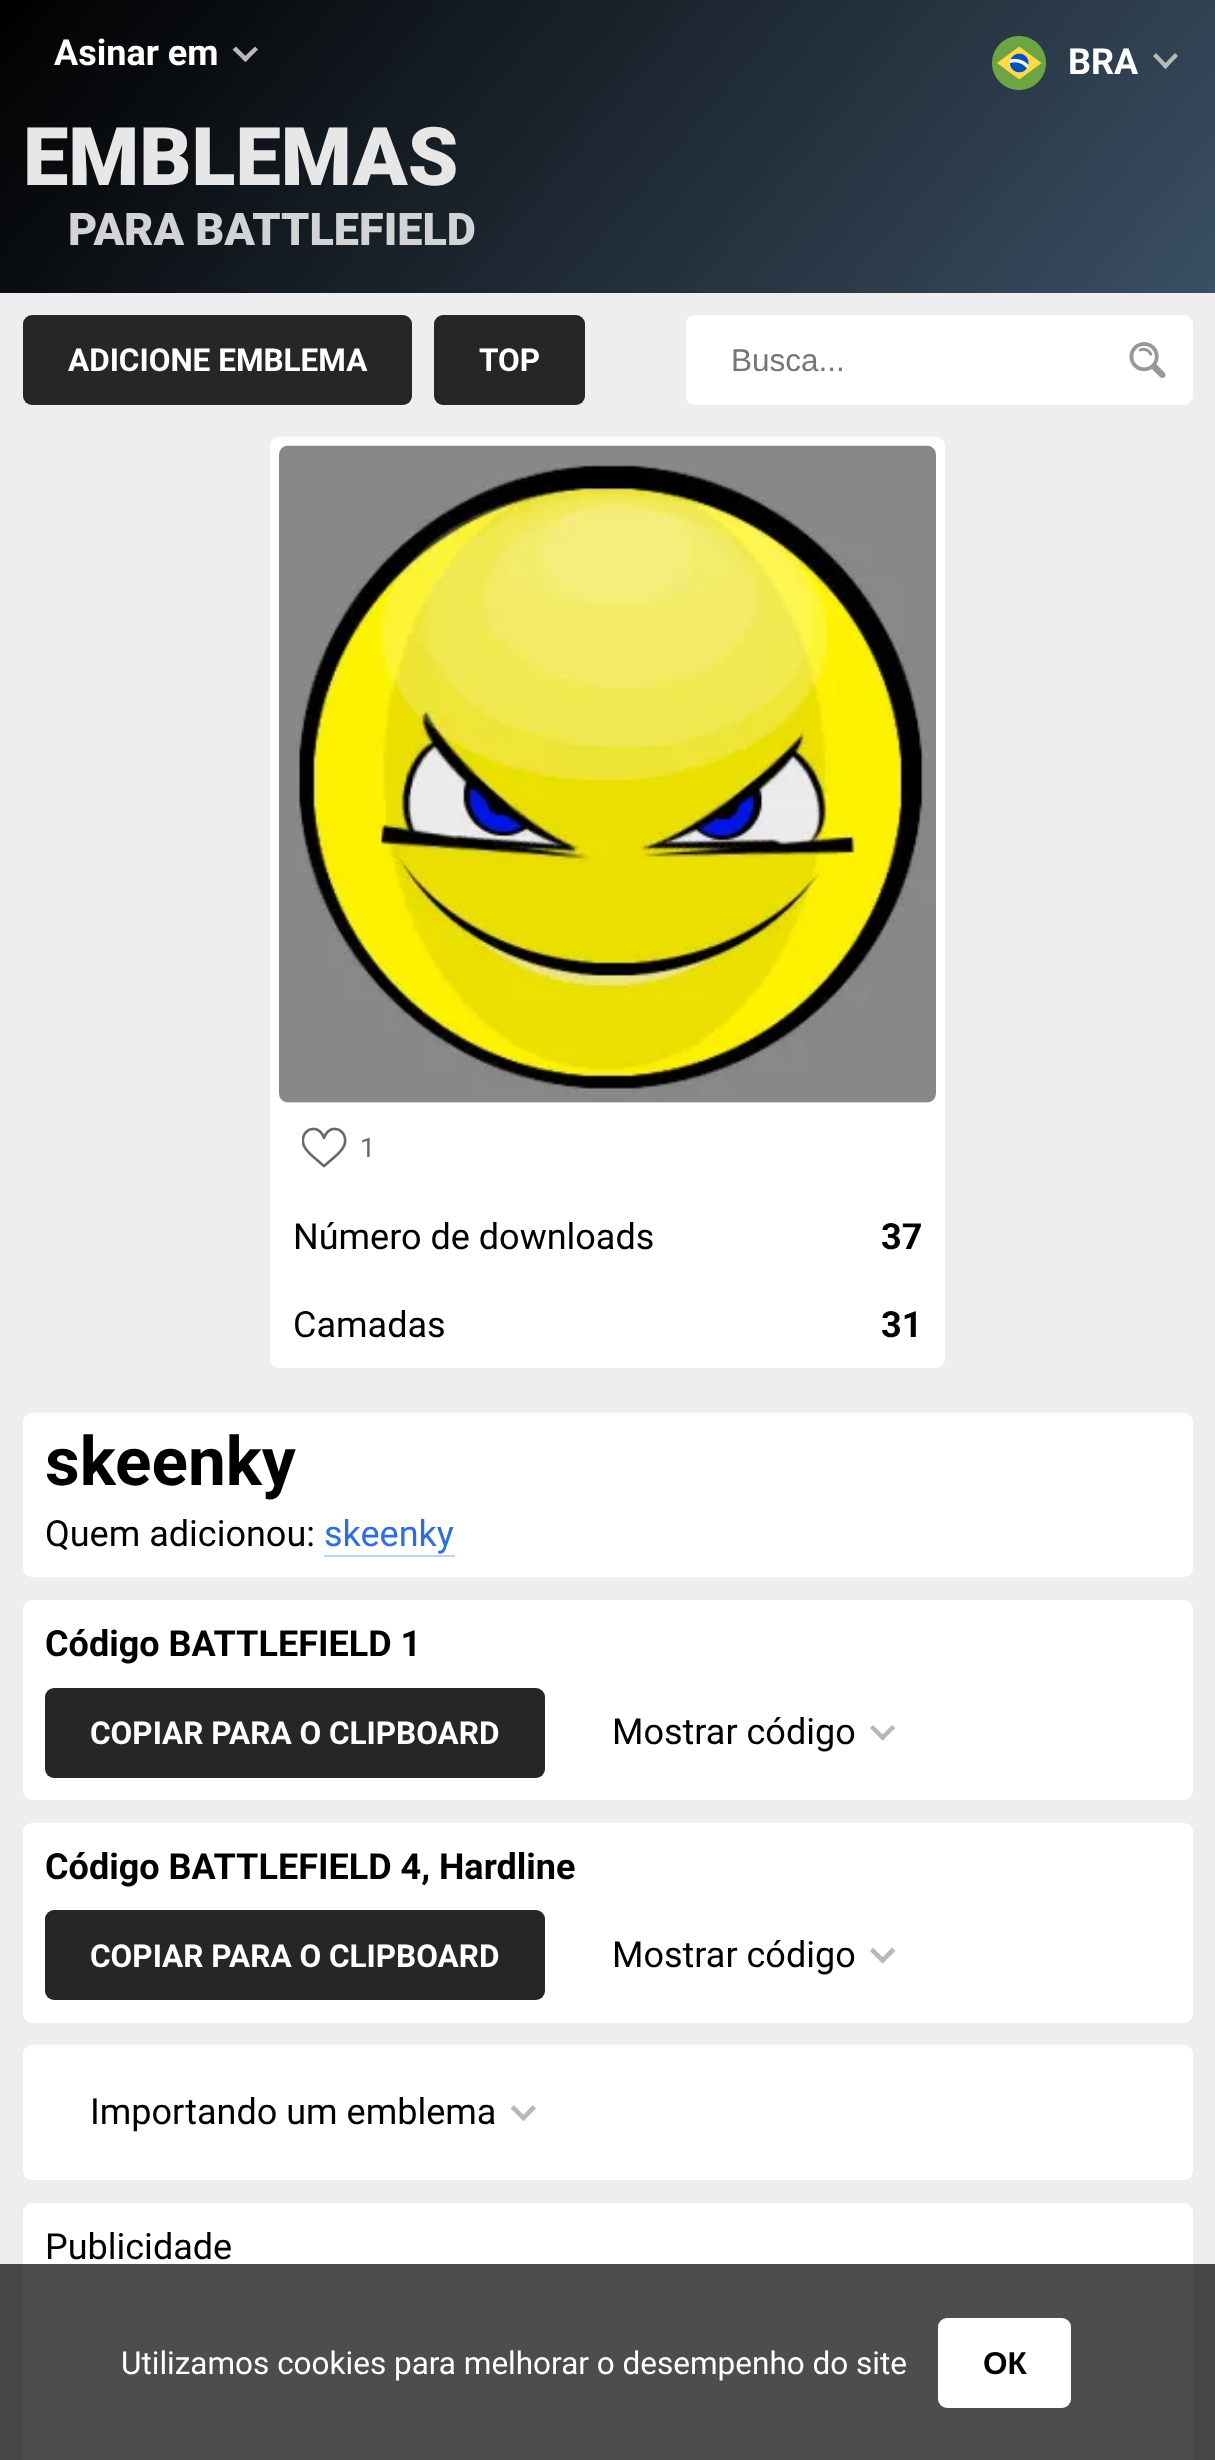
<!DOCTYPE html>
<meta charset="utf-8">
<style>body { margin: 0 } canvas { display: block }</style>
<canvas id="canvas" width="1215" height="2460"></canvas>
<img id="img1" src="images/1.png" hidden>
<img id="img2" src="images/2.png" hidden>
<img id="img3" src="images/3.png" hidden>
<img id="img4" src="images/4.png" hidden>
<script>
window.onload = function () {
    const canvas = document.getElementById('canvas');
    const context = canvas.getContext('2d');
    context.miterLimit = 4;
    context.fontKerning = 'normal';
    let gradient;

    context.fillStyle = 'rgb(238, 238, 240)';
    context.fillRect(0, 0, 1215, 2460);
    context.fillStyle = 'rgb(71, 71, 72)';
    context.fillRect(0, 2264, 1215, 196);
    gradient = context.createLinearGradient(179, -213, 1036, 506);
    gradient.addColorStop(0, 'rgb(0, 0, 0)');
    gradient.addColorStop(1, 'rgb(58, 79, 99)');
    context.fillStyle = gradient;
    context.fillRect(0, 0, 1215, 293);
    context.fillStyle = 'rgb(184, 184, 184)';
    context.beginPath();
    context.moveTo(255, 46.5);
    context.lineTo(258, 49.5);
    context.lineTo(245.5, 62);
    context.lineTo(242, 59);
    context.closePath();
    context.fill();
    context.beginPath();
    context.moveTo(236, 46.5);
    context.lineTo(248.5, 59);
    context.lineTo(245.5, 62);
    context.lineTo(232.5, 49.5);
    context.closePath();
    context.fill();
    context.drawImage(document.getElementById('img1'), 992, 36, 54, 54);
    context.beginPath();
    context.moveTo(1175, 53);
    context.lineTo(1178, 56);
    context.lineTo(1165.5, 69);
    context.lineTo(1162.5, 66);
    context.closePath();
    context.fill();
    context.beginPath();
    context.moveTo(1156, 53);
    context.lineTo(1168.5, 66);
    context.lineTo(1165.5, 69);
    context.lineTo(1153, 56);
    context.closePath();
    context.fill();
    context.fillStyle = 'rgb(38, 38, 38)';
    context.beginPath();
    context.roundRect(23, 315, 389, 90, 9);
    context.fill();
    context.beginPath();
    context.roundRect(434, 315, 151, 90, 9);
    context.fill();
    context.fillStyle = 'rgb(255, 255, 255)';
    context.beginPath();
    context.roundRect(686, 315, 507, 90, 9);
    context.fill();
    context.beginPath();
    context.roundRect(686, 315, 417, 90, 9);
    context.fill();
    context.drawImage(document.getElementById('img2'), 1129, 342, 37, 36);
    context.beginPath();
    context.roundRect(270, 437, 675, 931, 9);
    context.fill();
    context.fillStyle = 'rgb(236, 236, 236)';
    context.beginPath();
    context.roundRect(279, 446, 657, 657, 9);
    context.fill();
    context.drawImage(document.getElementById('img3'), 279, 445, 657, 658);
    context.drawImage(document.getElementById('img4'), 302, 1127, 45, 41);
    context.fillStyle = 'rgb(255, 255, 255)';
    context.beginPath();
    context.roundRect(23, 1413, 1170, 164, 9);
    context.fill();
    context.fillStyle = 'rgb(187, 210, 255)';
    context.fillRect(324, 1555, 131, 2);
    context.fillStyle = 'rgb(255, 255, 255)';
    context.beginPath();
    context.roundRect(23, 1600, 1170, 200, 9);
    context.fill();
    context.fillStyle = 'rgb(38, 38, 38)';
    context.beginPath();
    context.roundRect(45, 1688, 500, 90, 9);
    context.fill();
    context.fillStyle = 'rgb(184, 184, 184)';
    context.beginPath();
    context.moveTo(892, 1725);
    context.lineTo(895.5, 1728);
    context.lineTo(882.5, 1740.5);
    context.lineTo(879.5, 1737.5);
    context.closePath();
    context.fill();
    context.beginPath();
    context.moveTo(873, 1725);
    context.lineTo(886, 1737.5);
    context.lineTo(882.5, 1740.5);
    context.lineTo(870, 1728);
    context.closePath();
    context.fill();
    context.fillStyle = 'rgb(255, 255, 255)';
    context.beginPath();
    context.roundRect(23, 1823, 1170, 200, 9);
    context.fill();
    context.fillStyle = 'rgb(38, 38, 38)';
    context.beginPath();
    context.roundRect(45, 1910, 500, 90, 9);
    context.fill();
    context.fillStyle = 'rgb(184, 184, 184)';
    context.beginPath();
    context.moveTo(892, 1947.5);
    context.lineTo(895.5, 1951);
    context.lineTo(882.5, 1963.5);
    context.lineTo(879.5, 1960.5);
    context.closePath();
    context.fill();
    context.beginPath();
    context.moveTo(873, 1947.5);
    context.lineTo(886, 1960.5);
    context.lineTo(882.5, 1963.5);
    context.lineTo(870, 1951);
    context.closePath();
    context.fill();
    context.fillStyle = 'rgb(255, 255, 255)';
    context.beginPath();
    context.roundRect(23, 2045, 1170, 135, 9);
    context.fill();
    context.fillStyle = 'rgb(184, 184, 184)';
    context.beginPath();
    context.moveTo(533, 2105);
    context.lineTo(536, 2108.5);
    context.lineTo(523.5, 2121);
    context.lineTo(520, 2118);
    context.closePath();
    context.fill();
    context.beginPath();
    context.moveTo(514, 2105);
    context.lineTo(526.5, 2118);
    context.lineTo(523.5, 2121);
    context.lineTo(510.5, 2108.5);
    context.closePath();
    context.fill();
    context.fillStyle = 'rgb(255, 255, 255)';
    context.beginPath();
    context.roundRect(23, 2203, 1170, 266, 9);
    context.fill();
    context.fillStyle = 'rgb(77, 77, 77)';
    context.fillRect(23, 2264, 1170, 196);
    context.fillStyle = 'rgb(255, 255, 255)';
    context.beginPath();
    context.roundRect(938, 2318, 133, 90, 9);
    context.fill();
    context.font = 'bold 36px Roboto';
    context.fillText('Asinar em', 54, 65);
    context.fillText('BRA', 1068, 74);
    context.font = '900 81px Roboto';
    context.fillStyle = 'rgb(231, 231, 232)';
    context.fillText('EMBLEMAS', 23, 185);
    context.font = '900 45px Roboto';
    context.fillStyle = 'rgb(210, 211, 213)';
    context.fillText('PARA BATTLEFIELD', 68, 245);
    context.font = 'bold 31.5px Roboto';
    context.fillStyle = 'rgb(255, 255, 255)';
    context.fillText('ADICIONE EMBLEMA', 68, 371);
    context.fillText('TOP', 479, 371);
    context.font = '31.5px Liberation Sans';
    context.fillStyle = 'rgb(117, 117, 117)';
    context.fillText('Busca...', 731, 371);
    context.font = '27px Roboto';
    context.fillStyle = 'rgb(105, 105, 105)';
    context.fillText('1', 360, 1157);
    context.font = '36px Roboto';
    context.fillStyle = 'rgb(0, 0, 0)';
    context.fillText('Número de downloads', 293, 1249);
    context.font = 'bold 36px Roboto';
    context.fillText('37', 881, 1249);
    context.font = '36px Roboto';
    context.fillText('Camadas', 293, 1337);
    context.font = 'bold 36px Roboto';
    context.fillText('31', 881, 1337);
    context.font = 'bold 67.5px Roboto';
    context.fillText('skeenky', 45, 1485);
    context.font = '36px Roboto';
    context.fillText('Quem adicionou:', 45, 1546);
    context.fillStyle = 'rgb(47, 109, 226)';
    context.fillText('skeenky', 324, 1546);
    context.font = 'bold 36px Roboto';
    context.fillStyle = 'rgb(0, 0, 0)';
    context.fillText('Código BATTLEFIELD 1', 45, 1656);
    context.font = 'bold 31.5px Roboto';
    context.fillStyle = 'rgb(255, 255, 255)';
    context.fillText('COPIAR PARA O CLIPBOARD', 90, 1744);
    context.font = '36px Roboto';
    context.fillStyle = 'rgb(0, 0, 0)';
    context.fillText('Mostrar código', 612, 1744);
    context.font = 'bold 36px Roboto';
    context.fillText('Código BATTLEFIELD 4, Hardline', 45, 1879);
    context.font = 'bold 31.5px Roboto';
    context.fillStyle = 'rgb(255, 255, 255)';
    context.fillText('COPIAR PARA O CLIPBOARD', 90, 1967);
    context.font = '36px Roboto';
    context.fillStyle = 'rgb(0, 0, 0)';
    context.fillText('Mostrar código', 612, 1967);
    context.fillText('Importando um emblema', 90, 2124);
    context.fillText('Publicidade', 45, 2259);
    context.font = '31.5px Roboto';
    context.fillStyle = 'rgb(255, 255, 255)';
    context.fillText('Utilizamos cookies para melhorar o desempenho do site', 121, 2374);
    context.font = 'bold 31.5px Liberation Sans';
    context.fillStyle = 'rgb(0, 0, 0)';
    context.fillText('ОК', 983, 2374);
};
</script>
